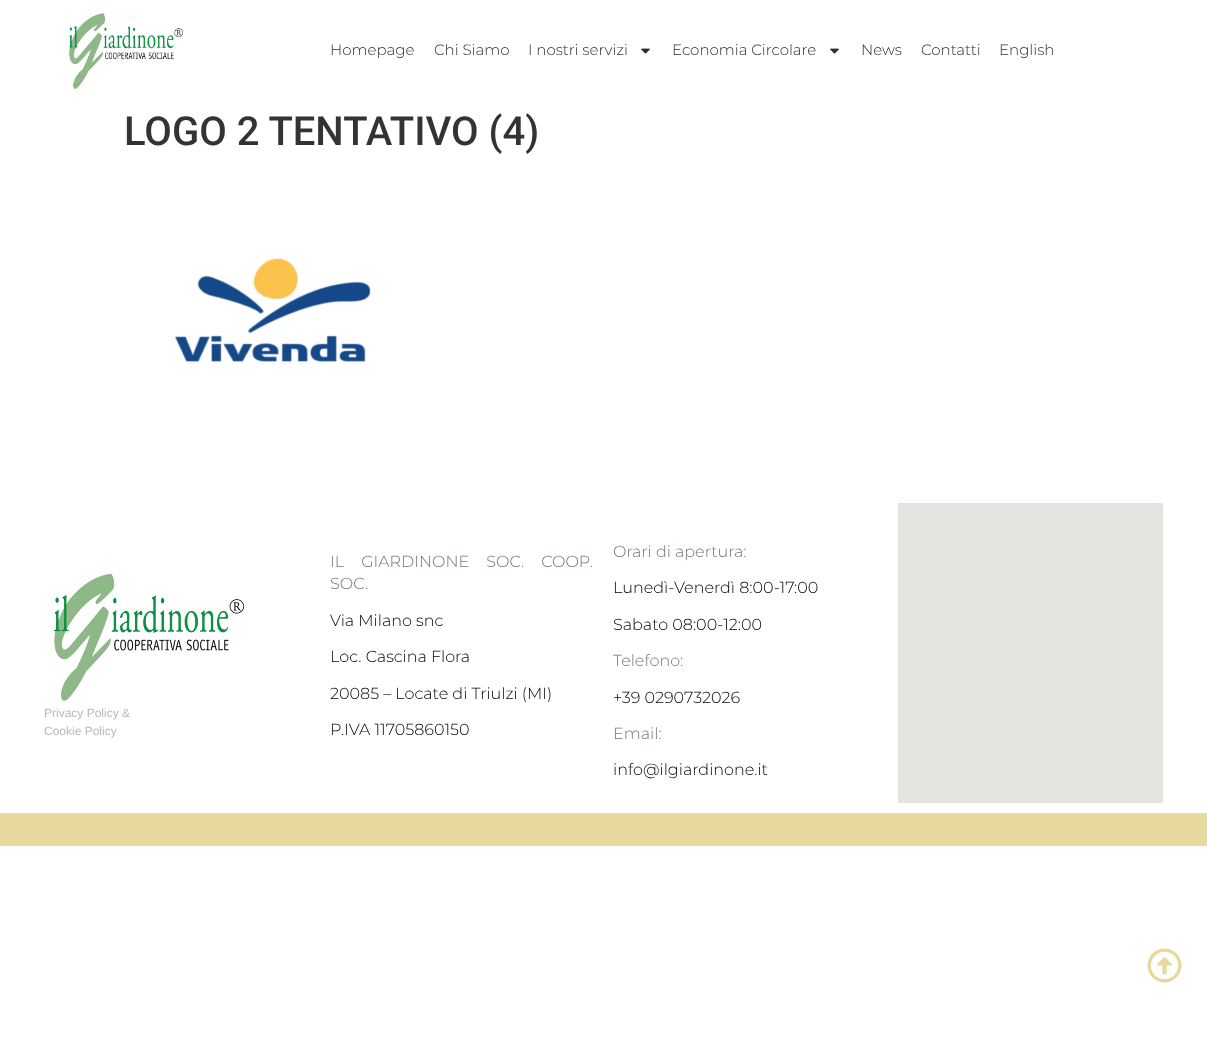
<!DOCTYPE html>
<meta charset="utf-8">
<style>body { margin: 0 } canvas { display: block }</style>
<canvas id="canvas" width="1207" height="1057"></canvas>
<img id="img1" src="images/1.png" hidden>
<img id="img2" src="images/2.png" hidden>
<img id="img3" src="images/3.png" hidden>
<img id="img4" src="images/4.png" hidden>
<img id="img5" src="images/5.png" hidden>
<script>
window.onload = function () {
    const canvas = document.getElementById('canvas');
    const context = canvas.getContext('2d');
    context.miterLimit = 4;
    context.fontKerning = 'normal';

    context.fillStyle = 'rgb(255, 255, 255)';
    context.fillRect(0, 0, 1207, 1057);
    context.drawImage(document.getElementById('img1'), 69, 13, 114, 76);
    context.drawImage(document.getElementById('img2'), 641, 48, 9, 6);
    context.drawImage(document.getElementById('img2'), 830, 48, 9, 6);
    context.drawImage(document.getElementById('img3'), 174, 258, 197, 105);
    context.fillStyle = 'rgb(255, 250, 245)';
    context.fillRect(0, 846, 1207, 1);
    context.drawImage(document.getElementById('img4'), 54, 573, 190, 128);
    context.fillStyle = 'rgb(229, 227, 223)';
    context.fillRect(898, 503, 265, 300);
    context.fillStyle = 'rgb(231, 216, 157)';
    context.fillRect(0, 813, 1207, 33);
    context.drawImage(document.getElementById('img5'), 1147, 948, 35, 35);
    context.font = '300 15px Montserrat';
    context.fillStyle = 'rgb(42, 48, 47)';
    context.fillText('Homepage', 330, 55);
    context.fillText('Chi Siamo', 434, 55);
    context.fillText('I nostri servizi', 528, 55);
    context.fillText('Economia Circolare', 672, 55);
    context.fillText('News', 861, 55);
    context.fillText('Contatti', 921, 55);
    context.fillText('English', 999, 55);
    context.font = '500 40px Roboto';
    context.fillStyle = 'rgb(51, 51, 51)';
    context.fillText('LOGO 2 TENTATIVO (4)', 124, 145);
    context.font = '12px Liberation Sans';
    context.fillStyle = 'rgb(184, 184, 184)';
    context.fillText('Privacy Policy &', 44, 717);
    context.fillText('Cookie Policy', 44, 735);
    context.wordSpacing = '13px';
    context.font = '300 16px Montserrat';
    context.fillStyle = 'rgb(108, 124, 105)';
    context.fillText('IL GIARDINONE SOC. COOP.', 330, 567);
    context.wordSpacing = '0px';
    context.fillText('SOC.', 330, 589);
    context.fillStyle = 'rgb(0, 0, 0)';
    context.fillText('Via Milano snc', 330, 626);
    context.fillText('Loc. Cascina Flora', 330, 662);
    context.fillText('20085 – Locate di Triulzi (MI)', 330, 699);
    context.fillText('P.IVA 11705860150', 330, 735);
    context.fillStyle = 'rgb(108, 124, 105)';
    context.fillText('Orari di apertura:', 613, 557);
    context.fillStyle = 'rgb(0, 0, 0)';
    context.fillText('Lunedì-Venerdì 8:00-17:00', 613, 593);
    context.fillText('Sabato 08:00-12:00', 613, 630);
    context.fillStyle = 'rgb(108, 124, 105)';
    context.fillText('Telefono:', 613, 666);
    context.fillStyle = 'rgb(0, 0, 0)';
    context.fillText('+39 0290732026', 613, 703);
    context.fillStyle = 'rgb(108, 124, 105)';
    context.fillText('Email:', 613, 739);
    context.fillStyle = 'rgb(0, 0, 0)';
    context.fillText('info@ilgiardinone.it', 613, 775);
};
</script>
